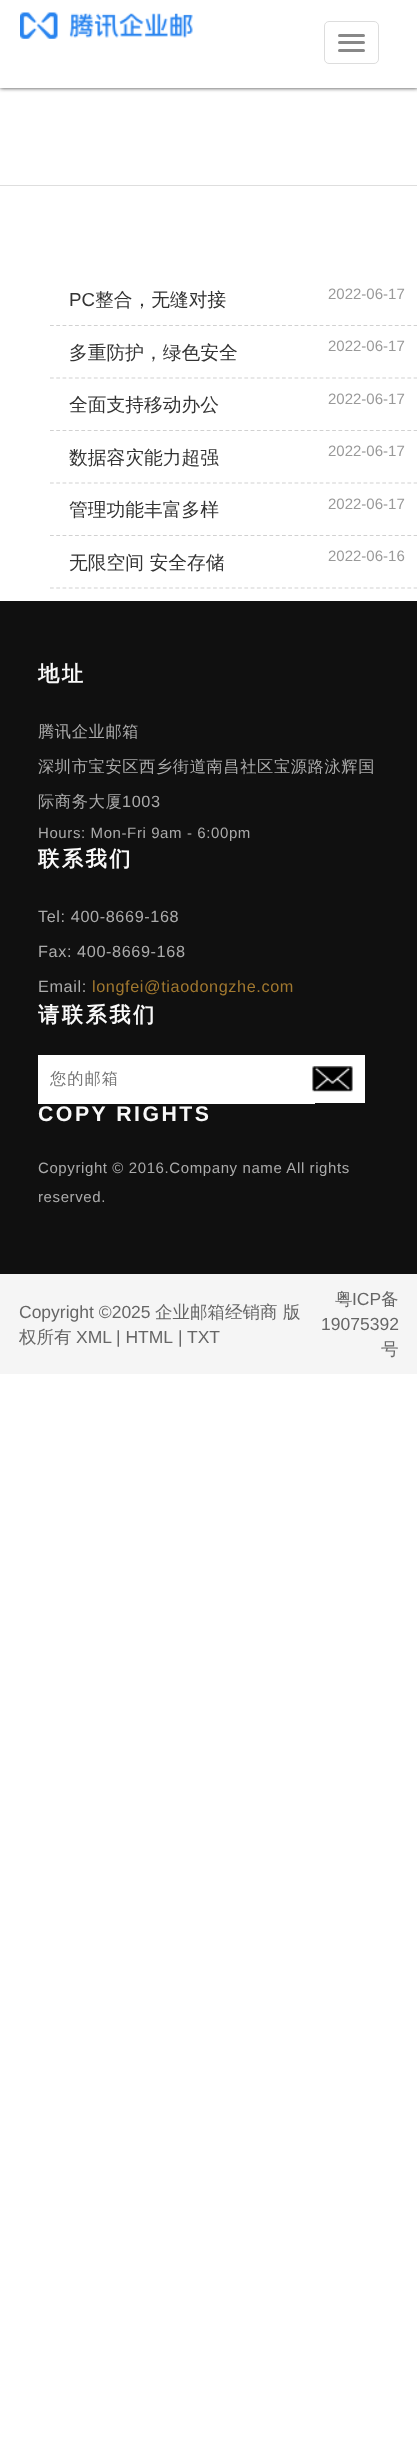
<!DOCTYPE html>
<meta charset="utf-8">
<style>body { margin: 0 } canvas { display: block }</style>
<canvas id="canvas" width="417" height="2441"></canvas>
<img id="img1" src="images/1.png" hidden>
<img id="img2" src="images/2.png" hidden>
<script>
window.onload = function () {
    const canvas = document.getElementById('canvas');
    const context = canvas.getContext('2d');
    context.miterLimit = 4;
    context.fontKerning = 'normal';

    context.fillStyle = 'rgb(255, 255, 255)';
    context.fillRect(0, 0, 417, 2441);
    context.fillStyle = 'rgb(51, 51, 51)';
    context.filter = 'blur(2px)';
    context.beginPath();
    context.rect(0, 0, 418, 88);
    context.fill();
    context.filter = 'none';
    context.fillStyle = 'rgb(255, 255, 255)';
    context.fillRect(0, 0, 417, 88);
    context.drawImage(document.getElementById('img1'), 20, 12, 173, 27);
    context.beginPath();
    context.roundRect(324.5, 21.5, 54, 42, 4.5);
    context.strokeStyle = 'rgb(221, 221, 221)';
    context.stroke();
    context.fillStyle = 'rgb(136, 136, 136)';
    context.beginPath();
    context.roundRect(338, 34, 27, 3, 1.5);
    context.fill();
    context.beginPath();
    context.roundRect(338, 41, 27, 3, 1.5);
    context.fill();
    context.beginPath();
    context.roundRect(338, 49, 27, 3, 1.5);
    context.fill();
    context.fillStyle = 'rgb(222, 222, 222)';
    context.fillRect(0, 185, 417, 1);
    context.beginPath();
    context.moveTo(50, 325.5);
    context.lineTo(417.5, 325.5);
    context.strokeStyle = 'rgb(209, 209, 209)';
    context.lineWidth = 1.2;
    context.setLineDash([3.75, 2.52]);
    context.stroke();
    context.beginPath();
    context.moveTo(50, 378);
    context.lineTo(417.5, 378);
    context.stroke();
    context.beginPath();
    context.moveTo(50, 430.5);
    context.lineTo(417.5, 430.5);
    context.stroke();
    context.beginPath();
    context.moveTo(50, 483);
    context.lineTo(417.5, 483);
    context.stroke();
    context.beginPath();
    context.moveTo(50, 535.5);
    context.lineTo(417.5, 535.5);
    context.stroke();
    context.beginPath();
    context.moveTo(50, 588);
    context.lineTo(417.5, 588);
    context.stroke();
    context.fillStyle = 'rgb(16, 16, 16)';
    context.fillRect(0, 601, 417, 673);
    context.fillStyle = 'rgb(255, 255, 255)';
    context.fillRect(38, 1055, 277, 49);
    context.fillRect(315, 1055, 50, 48);
    context.drawImage(document.getElementById('img2'), 312, 1066, 41, 26);
    context.fillStyle = 'rgb(245, 245, 245)';
    context.fillRect(0, 1274, 417, 100);
    context.font = '18.75px Liberation Sans';
    context.fillStyle = 'rgb(51, 51, 51)';
    context.fillText('PC', 69, 306);
    context.font = '500 18.75px WenQuanYi Zen Hei';
    context.fillText('整合，无缝对接', 95, 306);
    context.font = '15px Liberation Sans';
    context.fillStyle = 'rgb(153, 153, 153)';
    context.fillText('2022-06-17', 328, 299);
    context.font = '500 18.75px WenQuanYi Zen Hei';
    context.fillStyle = 'rgb(51, 51, 51)';
    context.fillText('多重防护，绿色安全', 69, 359);
    context.font = '15px Liberation Sans';
    context.fillStyle = 'rgb(153, 153, 153)';
    context.fillText('2022-06-17', 328, 351);
    context.font = '500 18.75px WenQuanYi Zen Hei';
    context.fillStyle = 'rgb(51, 51, 51)';
    context.fillText('全面支持移动办公', 69, 411);
    context.font = '15px Liberation Sans';
    context.fillStyle = 'rgb(153, 153, 153)';
    context.fillText('2022-06-17', 328, 404);
    context.font = '500 18.75px WenQuanYi Zen Hei';
    context.fillStyle = 'rgb(51, 51, 51)';
    context.fillText('数据容灾能力超强', 69, 464);
    context.font = '15px Liberation Sans';
    context.fillStyle = 'rgb(153, 153, 153)';
    context.fillText('2022-06-17', 328, 456);
    context.font = '500 18.75px WenQuanYi Zen Hei';
    context.fillStyle = 'rgb(51, 51, 51)';
    context.fillText('管理功能丰富多样', 69, 516);
    context.font = '15px Liberation Sans';
    context.fillStyle = 'rgb(153, 153, 153)';
    context.fillText('2022-06-17', 328, 509);
    context.font = '500 18.75px WenQuanYi Zen Hei';
    context.fillStyle = 'rgb(51, 51, 51)';
    context.fillText('无限空间 安全存储', 69, 569);
    context.font = '15px Liberation Sans';
    context.fillStyle = 'rgb(153, 153, 153)';
    context.fillText('2022-06-16', 328, 561);
    context.letterSpacing = '2.5px';
    context.font = 'bold 21.25px WenQuanYi Zen Hei';
    context.fillStyle = 'rgb(249, 249, 249)';
    context.fillText('地址', 38, 681);
    context.letterSpacing = '0.6px';
    context.font = '500 16.25px WenQuanYi Zen Hei';
    context.fillStyle = 'rgb(171, 171, 171)';
    context.fillText('腾讯企业邮箱', 38, 737);
    context.fillText('深圳市宝安区西乡街道南昌社区宝源路泳辉国', 38, 772);
    context.fillText('际商务大厦', 38, 807);
    context.font = '16.25px Liberation Sans';
    context.fillText('1003', 122, 807);
    context.font = '15px Liberation Sans';
    context.fillText('Hours: Mon-Fri 9am - 6:00pm', 38, 838);
    context.letterSpacing = '2.5px';
    context.font = 'bold 21.25px WenQuanYi Zen Hei';
    context.fillStyle = 'rgb(249, 249, 249)';
    context.fillText('联系我们', 38, 866);
    context.letterSpacing = '0.6px';
    context.font = '16.25px Liberation Sans';
    context.fillStyle = 'rgb(171, 171, 171)';
    context.fillText('Tel: 400-8669-168', 38, 922);
    context.fillText('Fax: 400-8669-168', 38, 957);
    context.fillText('Email:', 38, 992);
    context.fillStyle = 'rgb(161, 120, 47)';
    context.fillText('longfei@tiaodongzhe.com', 92, 992);
    context.letterSpacing = '2.5px';
    context.font = 'bold 21.25px WenQuanYi Zen Hei';
    context.fillStyle = 'rgb(249, 249, 249)';
    context.fillText('请联系我们', 38, 1022);
    context.letterSpacing = '1px';
    context.font = '500 16.25px WenQuanYi Zen Hei';
    context.fillStyle = 'rgb(117, 117, 117)';
    context.fillText('您的邮箱', 50, 1084);
    context.letterSpacing = '2.5px';
    context.font = 'bold 21.25px Liberation Sans';
    context.fillStyle = 'rgb(249, 249, 249)';
    context.fillText('COPY RIGHTS', 38, 1121);
    context.letterSpacing = '0.6px';
    context.font = '15px Liberation Sans';
    context.fillStyle = 'rgb(171, 171, 171)';
    context.fillText('Copyright © 2016.Company name All rights', 38, 1173);
    context.fillText('reserved.', 38, 1202);
    context.letterSpacing = '0px';
    context.font = '17.5px Liberation Sans';
    context.fillStyle = 'rgb(102, 102, 102)';
    context.fillText('Copyright ©2025', 19, 1318);
    context.font = '500 17.5px WenQuanYi Zen Hei';
    context.fillText('企业邮箱经销商', 155, 1318);
    context.fillText('版', 283, 1318);
    context.fillText('权所有', 19, 1343);
    context.font = '17.5px Liberation Sans';
    context.fillText('XML', 76, 1343);
    context.fillText('| HTML', 116, 1343);
    context.fillText('|', 178, 1343);
    context.fillText('TXT', 187, 1343);
    context.font = '500 17.5px WenQuanYi Zen Hei';
    context.fillText('粤', 335, 1305);
    context.font = '17.5px Liberation Sans';
    context.fillText('ICP', 352, 1305);
    context.font = '500 17.5px WenQuanYi Zen Hei';
    context.fillText('备', 381, 1305);
    context.font = '17.5px Liberation Sans';
    context.fillText('19075392', 321, 1330);
    context.font = '500 17.5px WenQuanYi Zen Hei';
    context.fillText('号', 381, 1355);
};
</script>
